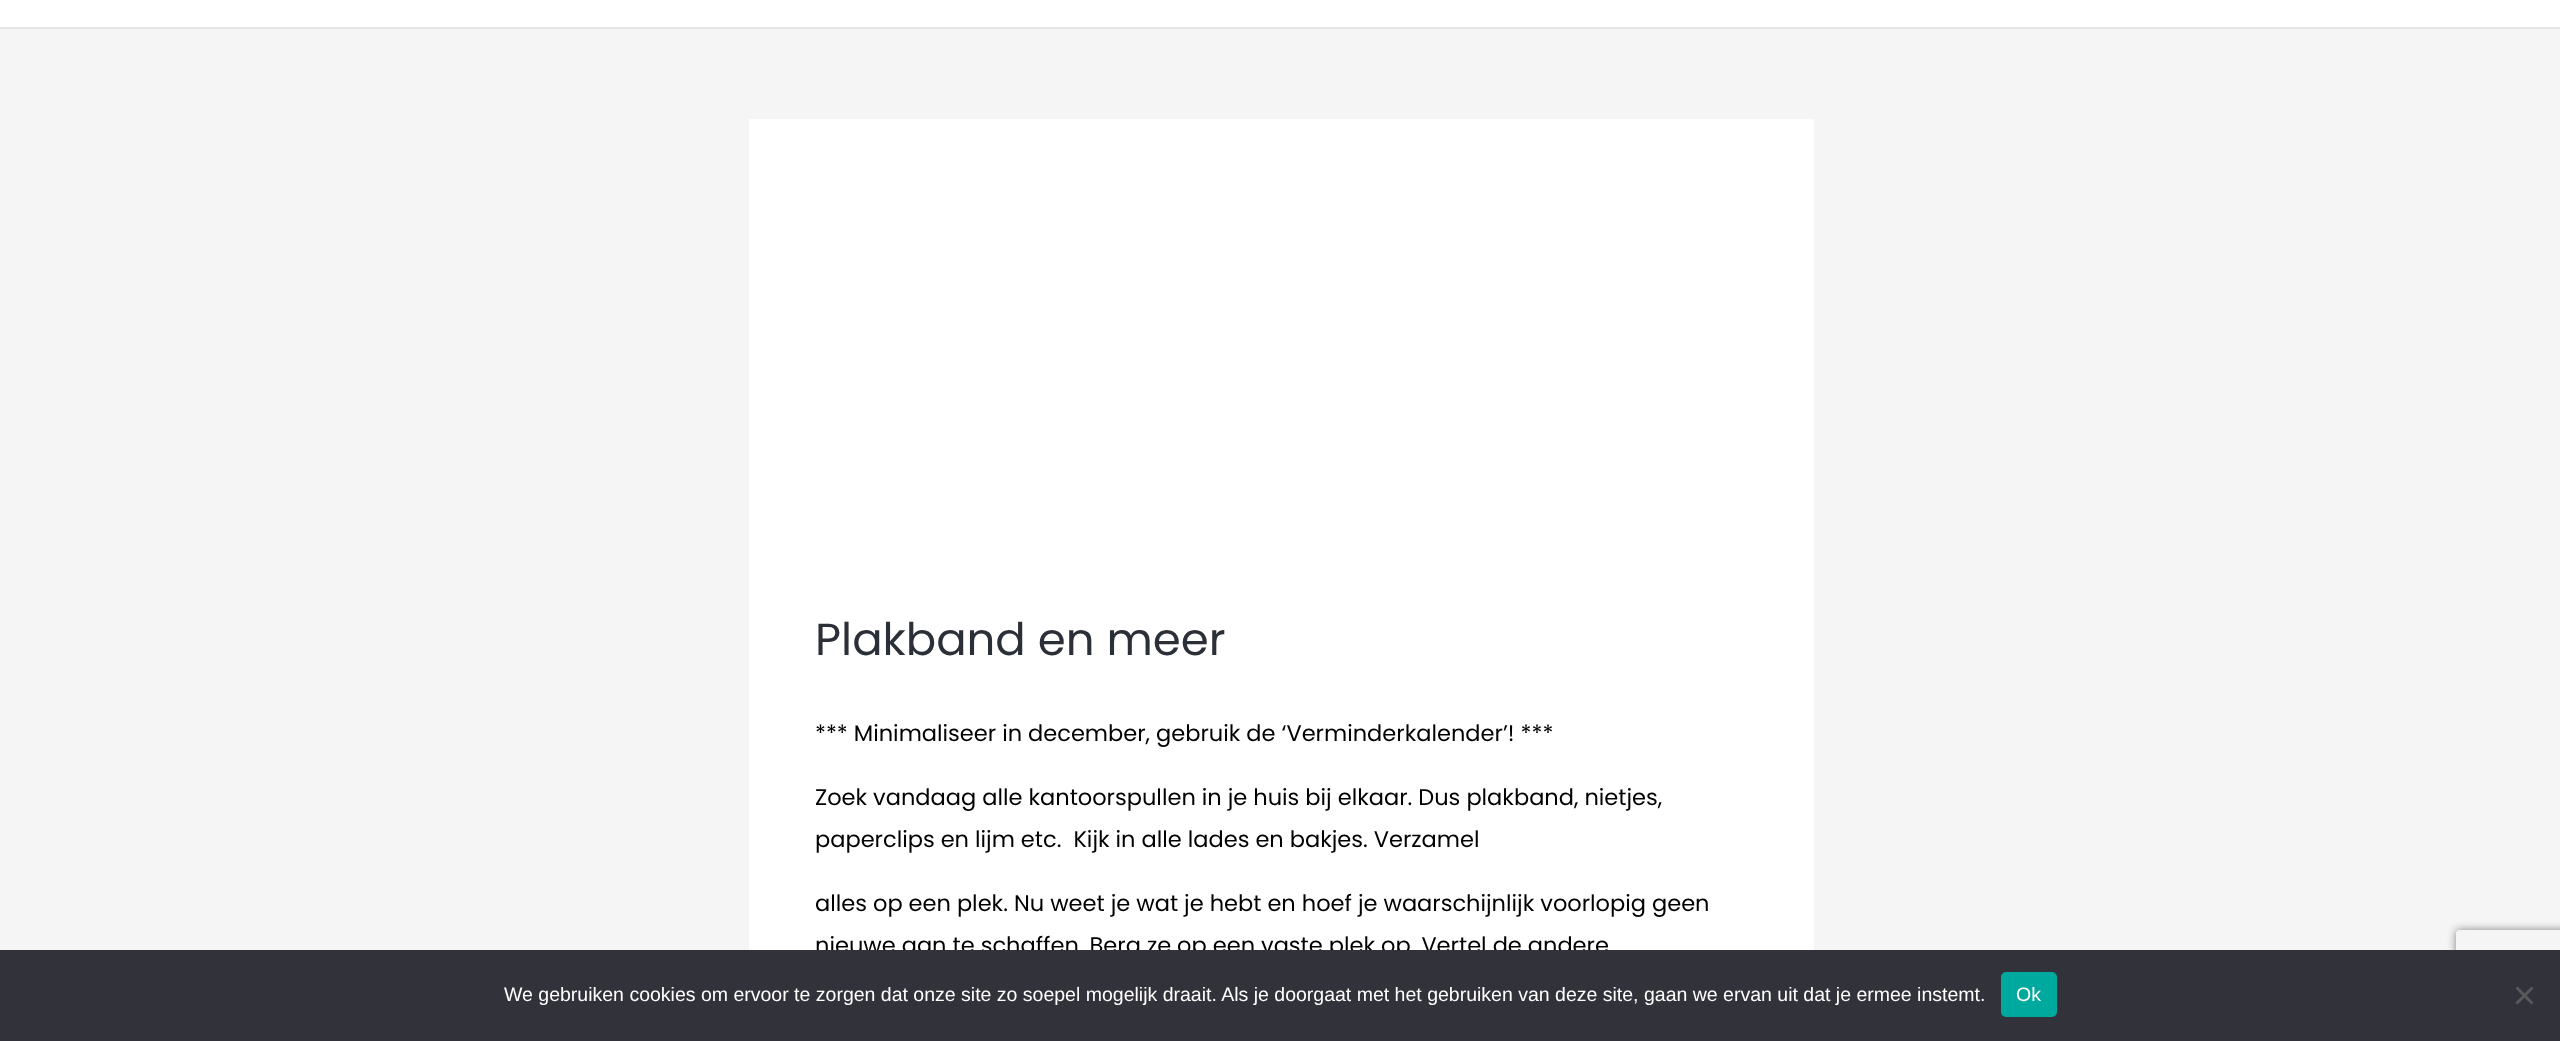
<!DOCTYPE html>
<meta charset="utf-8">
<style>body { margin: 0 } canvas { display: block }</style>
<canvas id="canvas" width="2560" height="1041"></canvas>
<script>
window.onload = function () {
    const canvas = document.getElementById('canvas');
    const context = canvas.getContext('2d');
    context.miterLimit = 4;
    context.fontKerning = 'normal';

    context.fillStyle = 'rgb(245, 245, 245)';
    context.fillRect(0, 0, 2560, 1041);
    context.fillStyle = 'rgb(255, 255, 255)';
    context.fillRect(0, 0, 2560, 27);
    context.fillStyle = 'rgb(229, 229, 229)';
    context.fillRect(0, 27, 2560, 2);
    context.fillStyle = 'rgb(255, 255, 255)';
    context.fillRect(749, 119, 1065, 831);
    context.save();
    context.beginPath();
    context.moveTo(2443, 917);
    context.lineTo(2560, 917);
    context.lineTo(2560, 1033);
    context.lineTo(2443, 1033);
    context.closePath();
    context.moveTo(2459, 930);
    context.lineTo(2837, 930);
    context.bezierCurveTo(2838.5, 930, 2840, 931.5, 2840, 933);
    context.lineTo(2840, 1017);
    context.bezierCurveTo(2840, 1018.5, 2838.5, 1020, 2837, 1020);
    context.lineTo(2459, 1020);
    context.bezierCurveTo(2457.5, 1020, 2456, 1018.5, 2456, 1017);
    context.lineTo(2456, 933);
    context.bezierCurveTo(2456, 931.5, 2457.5, 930, 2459, 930);
    context.closePath();
    context.clip('evenodd');
    context.fillStyle = 'rgb(128, 128, 128)';
    context.filter = 'blur(4px)';
    context.beginPath();
    context.roundRect(2456, 930, 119, 90, 3);
    context.fill();
    context.filter = 'none';
    context.restore();
    context.font = '45px Poppins';
    context.fillStyle = 'rgb(43, 47, 56)';
    context.fillText('Plakband en meer', 815, 655);
    context.font = '22.5px Poppins';
    context.fillStyle = 'rgb(0, 0, 0)';
    context.fillText('*** Minimaliseer in december, gebruik de ‘Verminderkalender’! ***', 815, 741);
    context.fillText('Zoek vandaag alle kantoorspullen in je huis bij elkaar. Dus plakband, nietjes,', 815, 805);
    context.fillText('paperclips en lijm etc.  Kijk in alle lades en bakjes. Verzamel', 815, 847);
    context.fillText('alles op een plek. Nu weet je wat je hebt en hoef je waarschijnlijk voorlopig geen', 815, 911);
    context.fillText('nieuwe aan te schaffen. Berg ze op een vaste plek op. Vertel de andere', 815, 953);
    context.fillStyle = 'rgb(50, 50, 58)';
    context.fillRect(0, 950, 2560, 91);
    context.font = '19.5px Liberation Sans';
    context.fillStyle = 'rgb(255, 255, 255)';
    context.fillText('We gebruiken cookies om ervoor te zorgen dat onze site zo soepel mogelijk draait. Als je doorgaat met het gebruiken van deze site, gaan we ervan uit dat je ermee instemt.', 504, 1001);
    context.fillStyle = 'rgb(0, 169, 157)';
    context.beginPath();
    context.roundRect(2001, 972, 56, 45, 5);
    context.fill();
    context.fillStyle = 'rgb(255, 255, 255)';
    context.fillText('Ok', 2016, 1001);
    context.fillStyle = 'rgb(89, 89, 93)';
    context.beginPath();
    context.moveTo(2531.5, 986.5);
    context.lineTo(2533.5, 988.5);
    context.lineTo(2517.5, 1004.5);
    context.lineTo(2515.5, 1002.5);
    context.closePath();
    context.fill();
    context.beginPath();
    context.moveTo(2515.5, 988.5);
    context.lineTo(2517.5, 986.5);
    context.lineTo(2533.5, 1002.5);
    context.lineTo(2531.5, 1004.5);
    context.closePath();
    context.fill();
};
</script>
